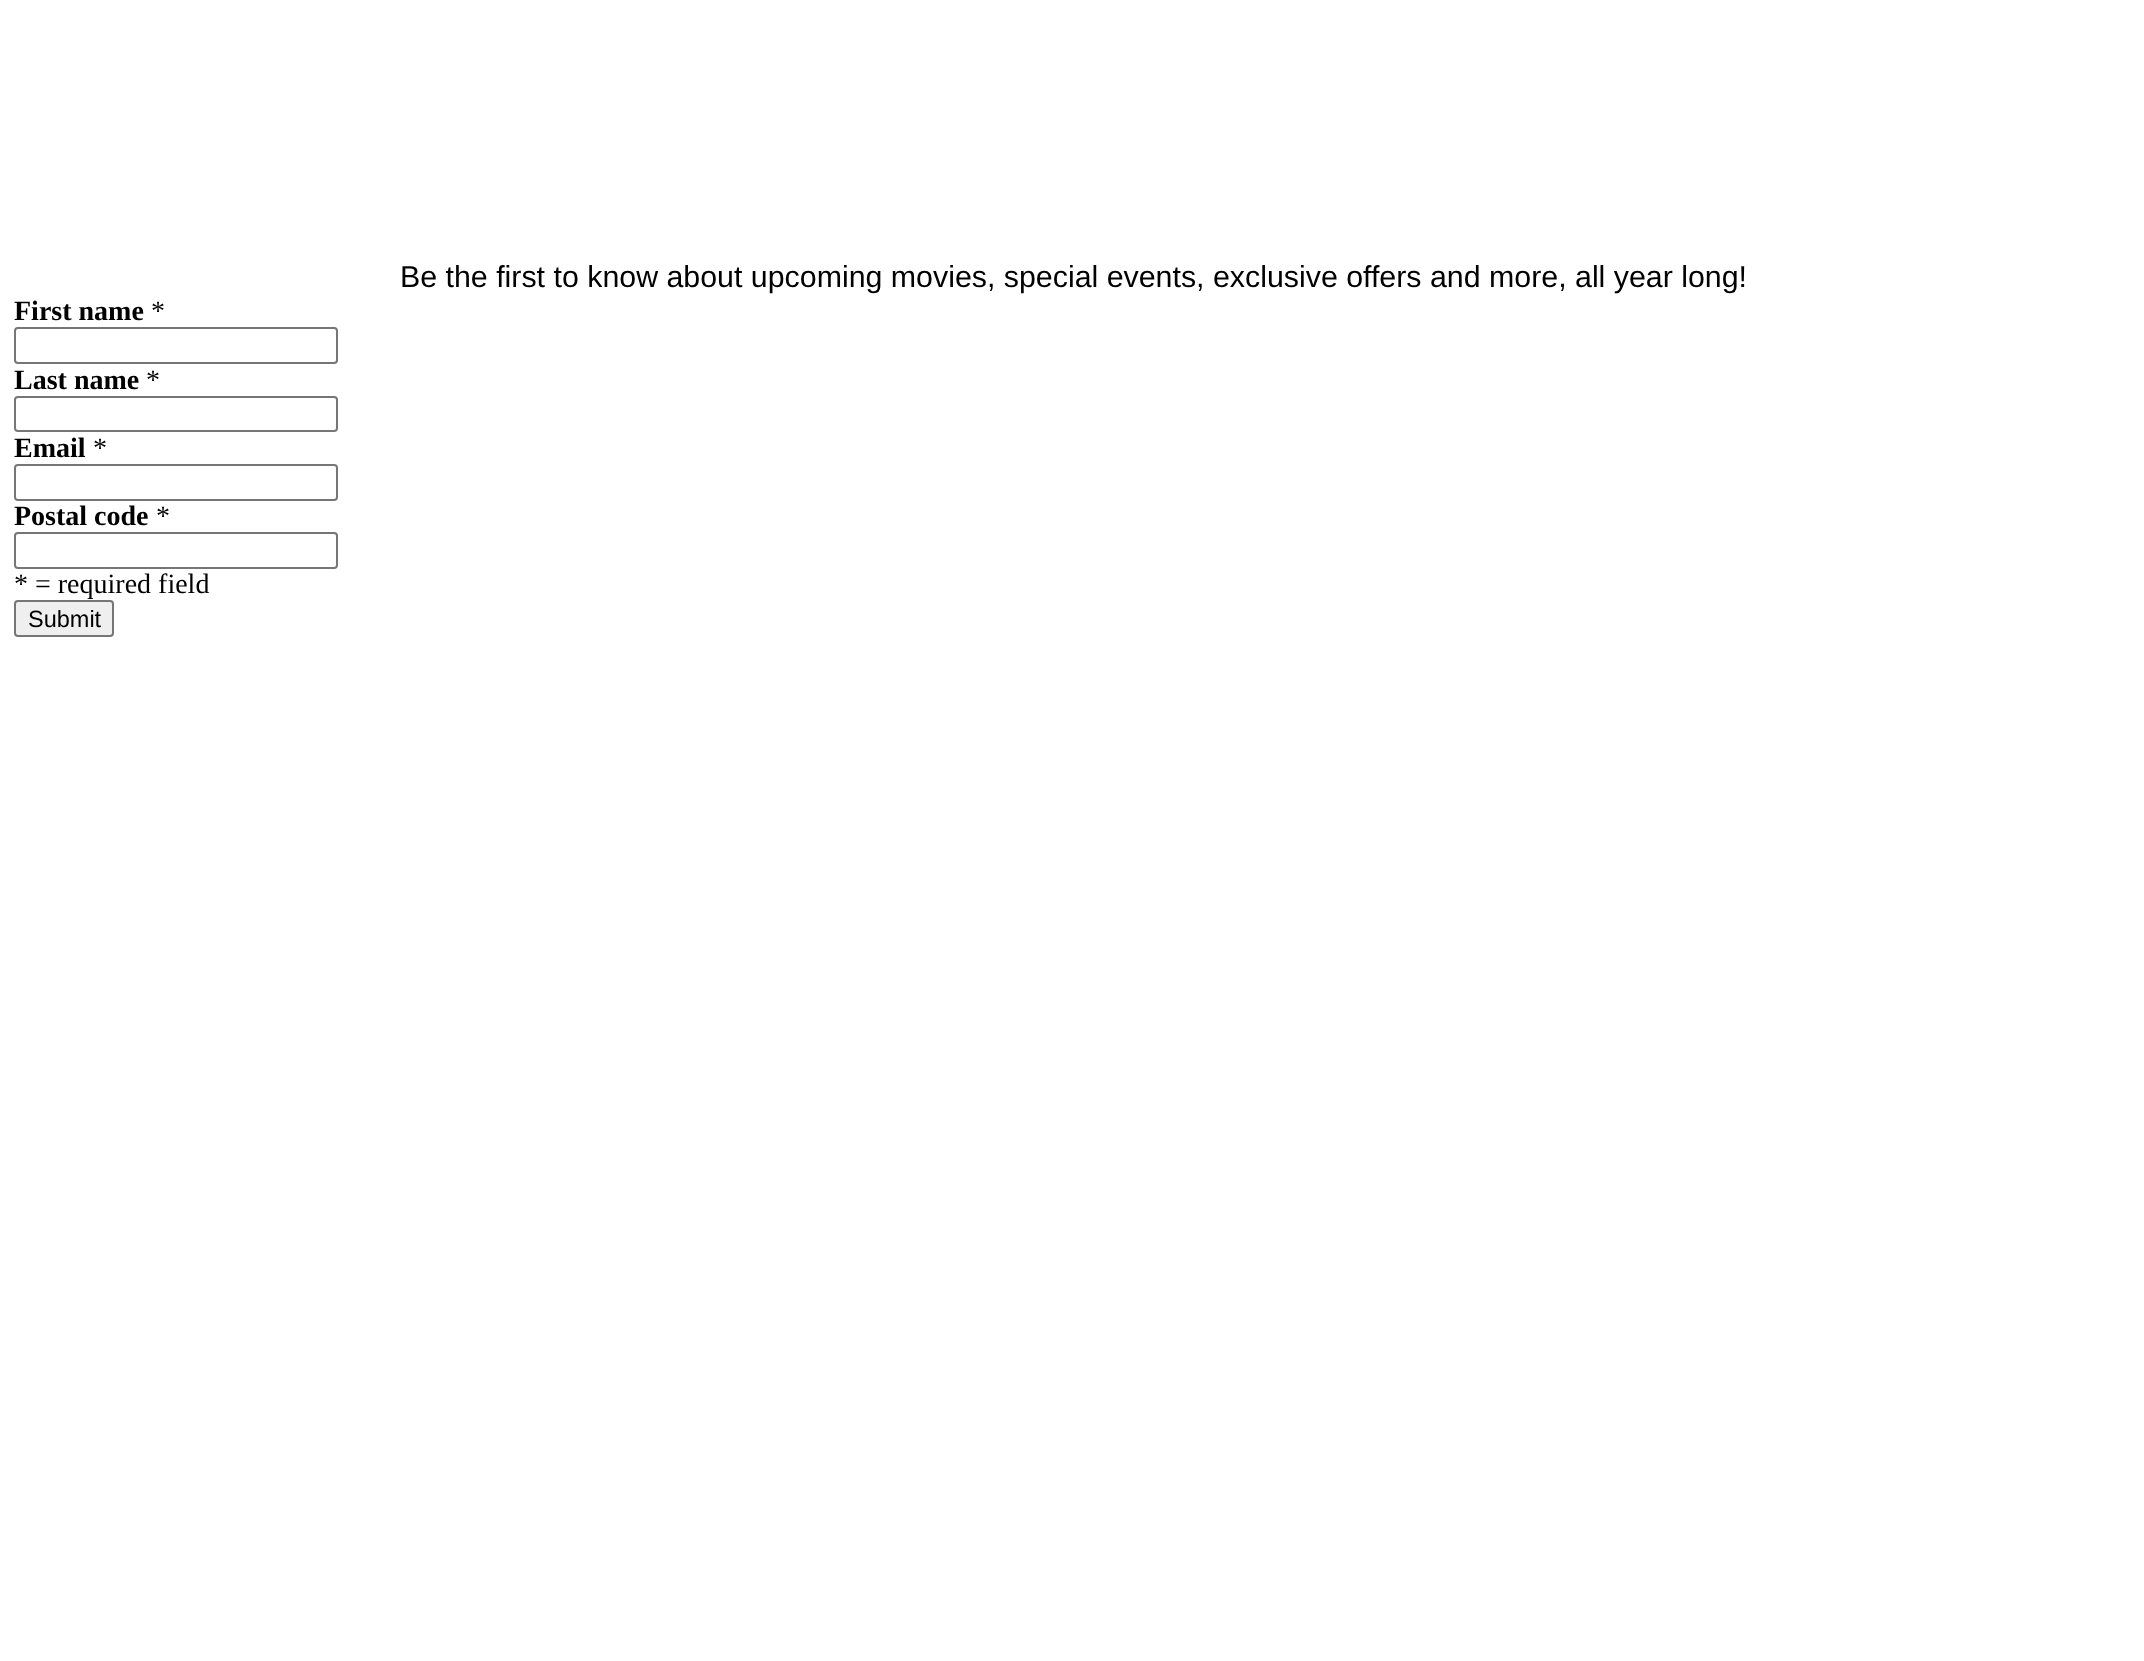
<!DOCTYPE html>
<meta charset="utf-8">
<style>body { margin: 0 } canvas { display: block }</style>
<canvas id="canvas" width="2144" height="1661"></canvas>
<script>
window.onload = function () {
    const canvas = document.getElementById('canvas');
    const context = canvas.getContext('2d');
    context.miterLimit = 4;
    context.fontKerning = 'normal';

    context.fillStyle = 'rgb(255, 255, 255)';
    context.fillRect(0, 0, 2144, 1661);
    context.beginPath();
    context.roundRect(15, 328, 322, 35, 3);
    context.strokeStyle = 'rgb(118, 118, 118)';
    context.lineWidth = 2;
    context.stroke();
    context.beginPath();
    context.roundRect(15, 397, 322, 34, 3);
    context.stroke();
    context.beginPath();
    context.roundRect(15, 465, 322, 35, 3);
    context.stroke();
    context.beginPath();
    context.roundRect(15, 533, 322, 35, 3);
    context.stroke();
    context.fillStyle = 'rgb(239, 239, 239)';
    context.beginPath();
    context.roundRect(15, 601, 98, 35, 3);
    context.fill();
    context.stroke();
    context.font = '30.35px Liberation Sans';
    context.fillStyle = 'rgb(0, 0, 0)';
    context.fillText('Be the first to know about upcoming movies, special events, exclusive offers and more, all year long!', 400, 287);
    context.font = 'bold 28px Liberation Serif';
    context.fillText('First name', 14, 320);
    context.font = '28px Liberation Serif';
    context.fillText('*', 151, 320);
    context.font = 'bold 28px Liberation Serif';
    context.fillText('Last name', 14, 389);
    context.font = '28px Liberation Serif';
    context.fillText('*', 146, 389);
    context.font = 'bold 28px Liberation Serif';
    context.fillText('Email', 14, 457);
    context.font = '28px Liberation Serif';
    context.fillText('*', 93, 457);
    context.font = 'bold 28px Liberation Serif';
    context.fillText('Postal code', 14, 525);
    context.font = '28px Liberation Serif';
    context.fillText('*', 156, 525);
    context.fillText('* = required field', 14, 593);
    context.font = '23.5px Liberation Sans';
    context.fillText('Submit', 28, 627);
};
</script>
